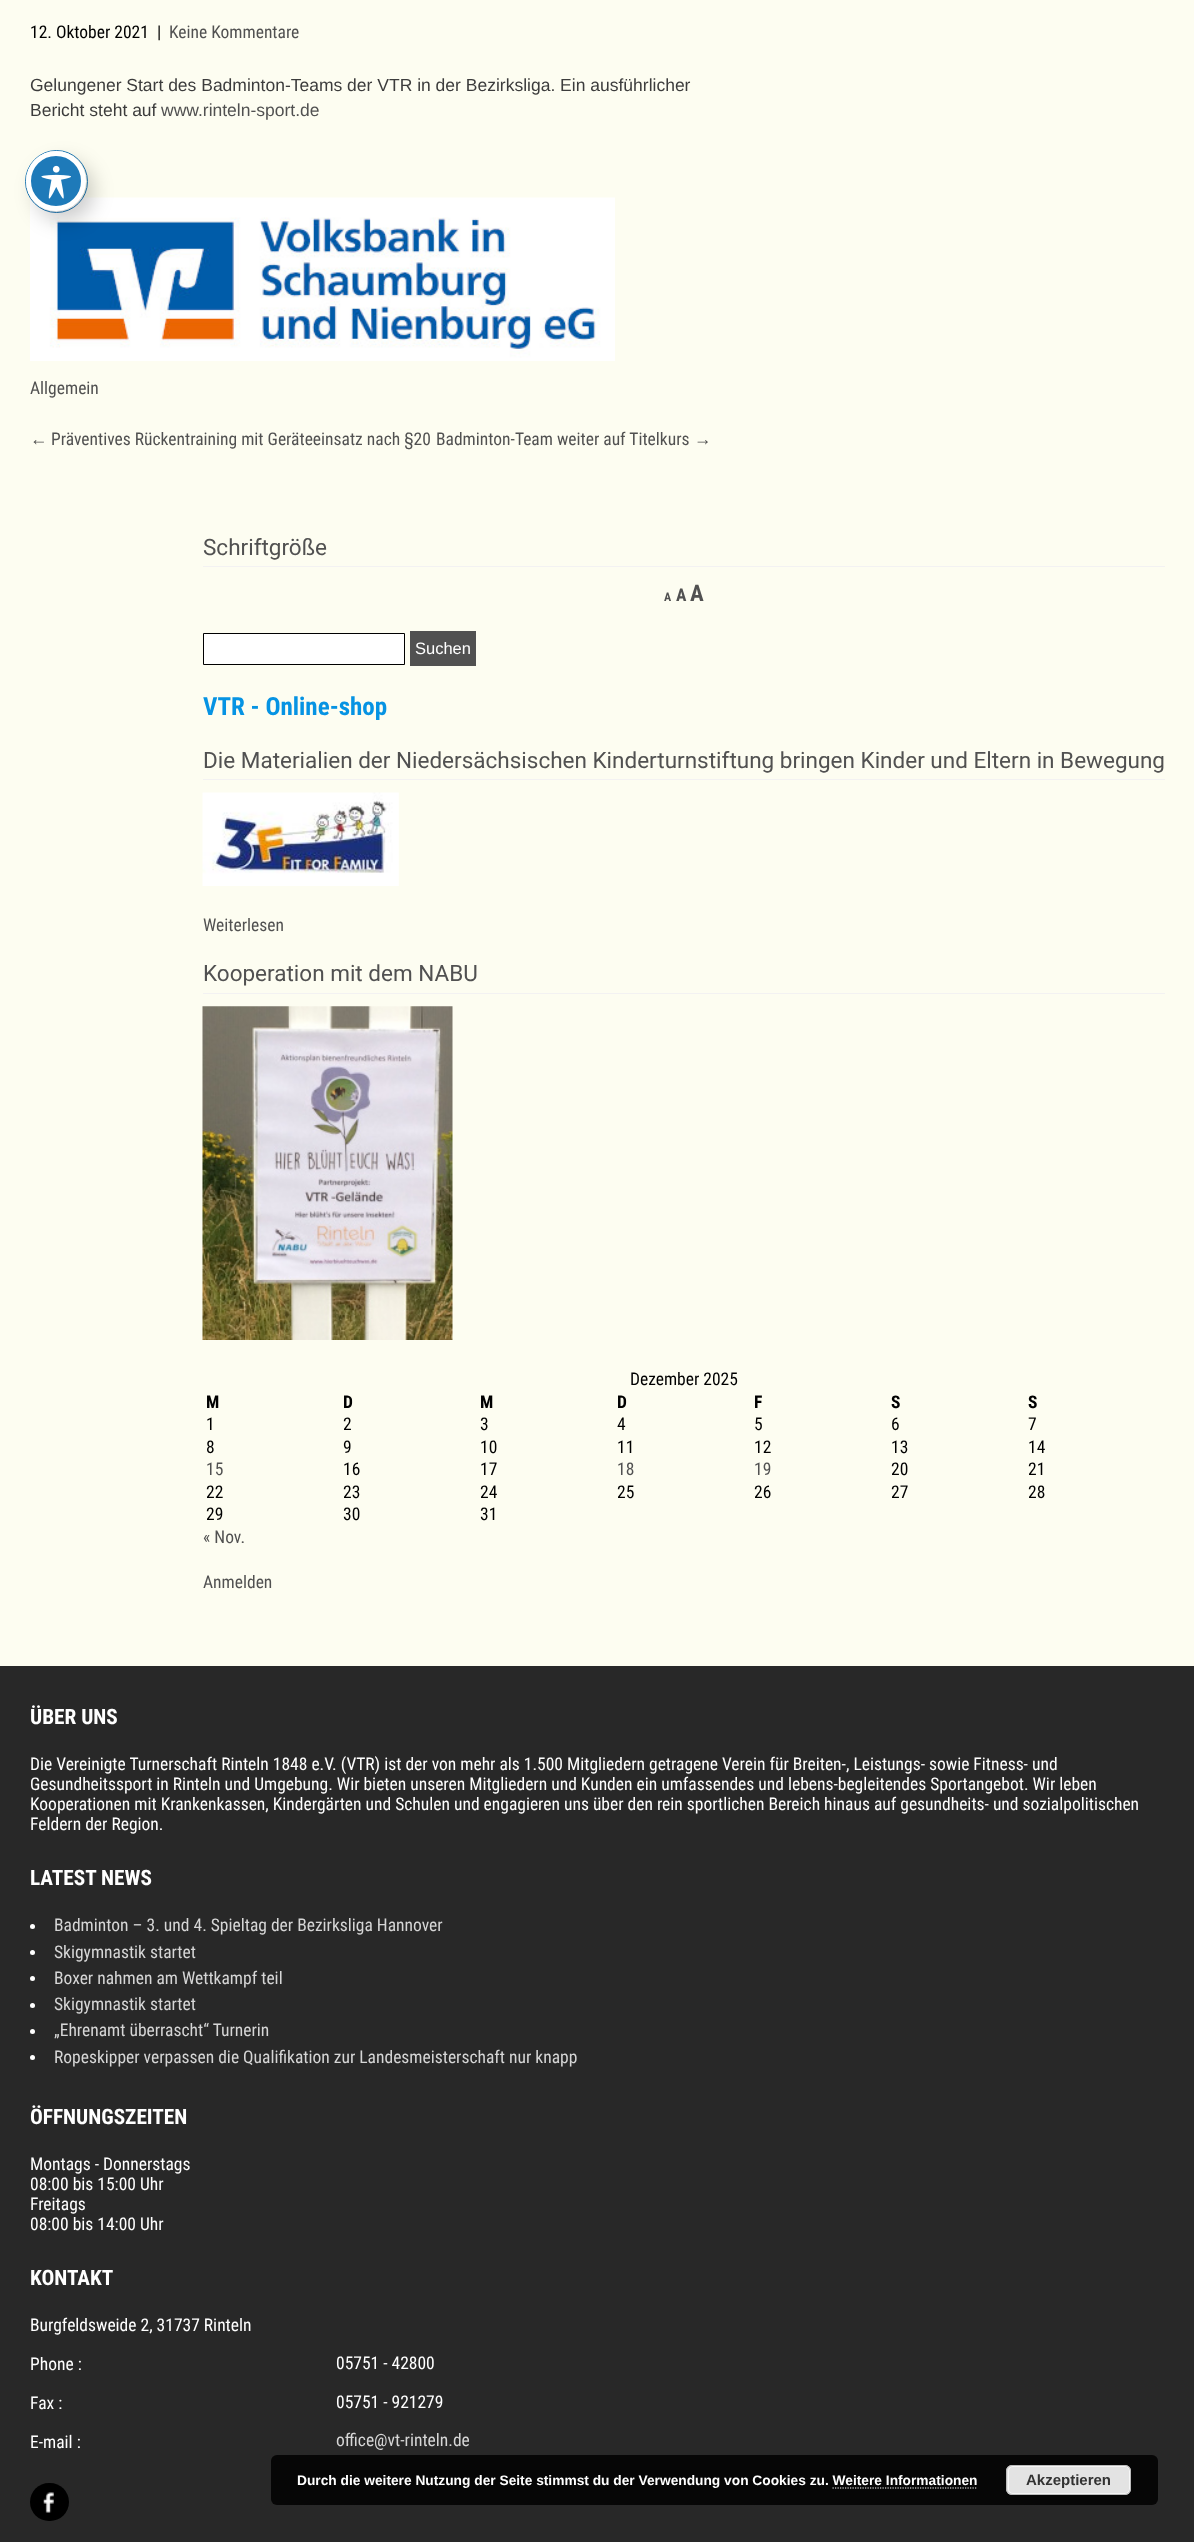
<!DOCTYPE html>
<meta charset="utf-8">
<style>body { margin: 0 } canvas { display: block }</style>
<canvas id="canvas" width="1194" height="2542"></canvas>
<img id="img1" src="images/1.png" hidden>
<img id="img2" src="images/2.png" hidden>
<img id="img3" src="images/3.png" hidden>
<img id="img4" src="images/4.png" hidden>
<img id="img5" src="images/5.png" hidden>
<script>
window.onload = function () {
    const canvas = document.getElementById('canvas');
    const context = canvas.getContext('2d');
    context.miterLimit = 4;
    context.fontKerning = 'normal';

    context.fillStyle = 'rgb(253, 253, 241)';
    context.fillRect(0, 0, 1194, 2542);
    context.drawImage(document.getElementById('img1'), 30, 197, 585, 164);
    context.fillStyle = 'rgb(243, 242, 242)';
    context.fillRect(203, 566, 962, 1);
    context.fillStyle = 'rgb(255, 255, 255)';
    context.beginPath();
    context.rect(203.5, 633.5, 201, 31);
    context.fill();
    context.strokeStyle = 'rgb(0, 0, 0)';
    context.stroke();
    context.fillStyle = 'rgb(81, 81, 81)';
    context.fillRect(410, 631, 66, 35);
    context.fillStyle = 'rgb(243, 242, 242)';
    context.fillRect(203, 779, 962, 1);
    context.drawImage(document.getElementById('img2'), 202, 792, 197, 94);
    context.fillRect(203, 993, 962, 1);
    context.drawImage(document.getElementById('img3'), 202, 1006, 251, 334);
    context.fillStyle = 'rgb(40, 40, 40)';
    context.fillRect(0, 1666, 1194, 876);
    context.fillStyle = 'rgb(255, 255, 255)';
    context.beginPath();
    context.arc(32.5, 1926.5, 2.5, 0, 2 * Math.PI);
    context.fill();
    context.beginPath();
    context.arc(32.5, 1952.5, 2.5, 0, 2 * Math.PI);
    context.fill();
    context.beginPath();
    context.arc(32.5, 1978.5, 2.5, 0, 2 * Math.PI);
    context.fill();
    context.beginPath();
    context.arc(32.5, 2005.5, 2.5, 0, 2 * Math.PI);
    context.fill();
    context.beginPath();
    context.arc(32.5, 2031.5, 2.5, 0, 2 * Math.PI);
    context.fill();
    context.beginPath();
    context.arc(32.5, 2057.5, 2.5, 0, 2 * Math.PI);
    context.fill();
    context.fillStyle = 'rgb(0, 0, 0)';
    context.beginPath();
    context.roundRect(30, 2483, 39, 38, 19);
    context.fill();
    context.drawImage(document.getElementById('img4'), 43, 2492, 11, 21);
    context.beginPath();
    context.arc(56.5, 181.5, 31, 0, 2 * Math.PI);
    context.strokeStyle = 'rgb(30, 122, 185)';
    context.stroke();
    context.fillStyle = 'rgba(0, 0, 0, 0.2)';
    context.filter = 'blur(10px)';
    context.beginPath();
    context.roundRect(34, 161, 60, 60, 30);
    context.fill();
    context.filter = 'none';
    context.fillStyle = 'rgb(30, 122, 185)';
    context.beginPath();
    context.arc(56, 181, 27.5, 0, 2 * Math.PI);
    context.fill();
    context.strokeStyle = 'rgb(255, 255, 255)';
    context.lineWidth = 5;
    context.stroke();
    context.drawImage(document.getElementById('img5'), 41, 165, 30, 34);
    context.fillStyle = 'rgb(6, 6, 6)';
    context.beginPath();
    context.roundRect(271, 2455, 887, 50, 6);
    context.fill();
    context.fillStyle = 'rgb(227, 227, 227)';
    context.beginPath();
    context.roundRect(1006, 2465, 125, 30, 6);
    context.fill();
    context.beginPath();
    context.roundRect(1008.5, 2466.5, 121, 27, 4.5);
    context.strokeStyle = 'rgb(246, 246, 246)';
    context.lineWidth = 1;
    context.stroke();
    context.beginPath();
    context.roundRect(1006.5, 2465.5, 124, 29, 5.5);
    context.strokeStyle = 'rgb(187, 187, 187)';
    context.stroke();
    context.beginPath();
    context.moveTo(832.5, 2488);
    context.lineTo(977.5, 2488);
    context.strokeStyle = 'rgb(255, 255, 255)';
    context.lineWidth = 1.2;
    context.setLineDash([1.25, 1.25]);
    context.stroke();
    context.font = '17.5px Roboto Condensed';
    context.fillStyle = 'rgb(0, 0, 0)';
    context.fillText('12. Oktober 2021', 30, 38);
    context.fillText('|', 157, 38);
    context.fillStyle = 'rgb(81, 81, 81)';
    context.fillText('Keine Kommentare', 169, 38);
    context.font = '17.5px Liberation Sans';
    context.fillStyle = 'rgb(60, 60, 60)';
    context.fillText('Gelungener Start des Badminton-Teams der VTR in der Bezirksliga. Ein ausführlicher', 30, 91);
    context.fillText('Bericht steht auf', 30, 116);
    context.fillStyle = 'rgb(81, 81, 81)';
    context.fillText('www.rinteln-sport.de', 161, 116);
    context.font = '17.5px Roboto Condensed';
    context.fillText('Allgemein', 30, 394);
    context.font = '17.5px Liberation Serif';
    context.fillText('←', 30, 445);
    context.font = '17.5px Roboto Condensed';
    context.fillText('Präventives Rückentraining mit Geräteeinsatz nach §20', 51, 445);
    context.fillText('Badminton-Team weiter auf Titelkurs', 436, 445);
    context.font = '17.5px Liberation Serif';
    context.fillText('→', 694, 445);
    context.font = '22.5px Roboto';
    context.fillText('Schriftgröße', 203, 555);
    context.font = 'bold 12px Roboto Condensed';
    context.fillText('A', 664, 601);
    context.font = 'bold 17.5px Roboto Condensed';
    context.fillText('A', 676, 601);
    context.font = 'bold 23px Roboto Condensed';
    context.fillText('A', 690, 601);
    context.font = '16.5px Liberation Sans';
    context.fillStyle = 'rgb(255, 255, 255)';
    context.fillText('Suchen', 415, 654);
    context.font = 'bold 25px Roboto Condensed';
    context.fillStyle = 'rgb(6, 147, 227)';
    context.fillText('VTR - Online-shop', 203, 715);
    context.font = '22.5px Roboto';
    context.fillStyle = 'rgb(81, 81, 81)';
    context.fillText('Die Materialien der Niedersächsischen Kinderturnstiftung bringen Kinder und Eltern in Bewegung', 203, 768);
    context.font = '17.5px Roboto Condensed';
    context.fillText('Weiterlesen', 203, 931);
    context.font = '22.5px Roboto';
    context.fillText('Kooperation mit dem NABU', 203, 981);
    context.font = '17.5px Roboto Condensed';
    context.fillStyle = 'rgb(0, 0, 0)';
    context.fillText('Dezember 2025', 630, 1385);
    context.font = 'bold 17.5px Roboto Condensed';
    context.fillText('M', 206, 1408);
    context.fillText('D', 343, 1408);
    context.fillText('M', 480, 1408);
    context.fillText('D', 617, 1408);
    context.fillText('F', 754, 1408);
    context.fillText('S', 891, 1408);
    context.fillText('S', 1028, 1408);
    context.font = '17.5px Roboto Condensed';
    context.fillText('1', 206, 1430);
    context.fillText('2', 343, 1430);
    context.fillText('3', 480, 1430);
    context.fillText('4', 617, 1430);
    context.fillText('5', 754, 1430);
    context.fillText('6', 891, 1430);
    context.fillText('7', 1028, 1430);
    context.fillText('8', 206, 1453);
    context.fillText('9', 343, 1453);
    context.fillText('10', 480, 1453);
    context.fillText('11', 617, 1453);
    context.fillText('12', 754, 1453);
    context.fillText('13', 891, 1453);
    context.fillText('14', 1028, 1453);
    context.fillStyle = 'rgb(81, 81, 81)';
    context.fillText('15', 206, 1475);
    context.fillStyle = 'rgb(0, 0, 0)';
    context.fillText('16', 343, 1475);
    context.fillText('17', 480, 1475);
    context.fillStyle = 'rgb(81, 81, 81)';
    context.fillText('18', 617, 1475);
    context.fillText('19', 754, 1475);
    context.fillStyle = 'rgb(0, 0, 0)';
    context.fillText('20', 891, 1475);
    context.fillText('21', 1028, 1475);
    context.fillText('22', 206, 1498);
    context.fillText('23', 343, 1498);
    context.fillText('24', 480, 1498);
    context.fillText('25', 617, 1498);
    context.fillText('26', 754, 1498);
    context.fillText('27', 891, 1498);
    context.fillText('28', 1028, 1498);
    context.fillText('29', 206, 1520);
    context.fillText('30', 343, 1520);
    context.fillText('31', 480, 1520);
    context.fillStyle = 'rgb(81, 81, 81)';
    context.fillText('« Nov.', 203, 1543);
    context.fillText('Anmelden', 203, 1588);
    context.font = 'bold 21.25px Roboto Condensed';
    context.fillStyle = 'rgb(255, 255, 255)';
    context.fillText('ÜBER UNS', 30, 1724);
    context.font = '17.5px Roboto Condensed';
    context.fillText('Die Vereinigte Turnerschaft Rinteln 1848 e.V. (VTR) ist der von mehr als 1.500 Mitgliedern getragene Verein für Breiten-, Leistungs- sowie Fitness- und', 30, 1770);
    context.fillText('Gesundheitssport in Rinteln und Umgebung. Wir bieten unseren Mitgliedern und Kunden ein umfassendes und lebens-begleitendes Sportangebot. Wir leben', 30, 1790);
    context.fillText('Kooperationen mit Krankenkassen, Kindergärten und Schulen und engagieren uns über den rein sportlichen Bereich hinaus auf gesundheits- und sozialpolitischen', 30, 1810);
    context.fillText('Feldern der Region.', 30, 1830);
    context.font = 'bold 21.25px Roboto Condensed';
    context.fillText('LATEST NEWS', 30, 1885);
    context.font = '17.5px Roboto Condensed';
    context.fillStyle = 'rgb(214, 214, 214)';
    context.fillText('Badminton – 3. und 4. Spieltag der Bezirksliga Hannover', 54, 1931);
    context.fillText('Skigymnastik startet', 54, 1958);
    context.fillText('Boxer nahmen am Wettkampf teil', 54, 1984);
    context.fillText('Skigymnastik startet', 54, 2010);
    context.fillText('„Ehrenamt überrascht“ Turnerin', 54, 2036);
    context.fillText('Ropeskipper verpassen die Qualifikation zur Landesmeisterschaft nur knapp', 54, 2063);
    context.font = 'bold 21.25px Roboto Condensed';
    context.fillStyle = 'rgb(255, 255, 255)';
    context.fillText('ÖFFNUNGSZEITEN', 30, 2124);
    context.font = '17.5px Roboto Condensed';
    context.fillText('Montags - Donnerstags', 30, 2170);
    context.fillText('08:00 bis 15:00 Uhr', 30, 2190);
    context.fillText('Freitags', 30, 2210);
    context.fillText('08:00 bis 14:00 Uhr', 30, 2230);
    context.font = 'bold 21.25px Roboto Condensed';
    context.fillText('KONTAKT', 30, 2285);
    context.font = '17.5px Roboto Condensed';
    context.fillText('Burgfeldsweide 2, 31737 Rinteln', 30, 2331);
    context.fillText('Phone :', 30, 2370);
    context.fillText('05751 - 42800', 336, 2369);
    context.fillText('Fax :', 30, 2409);
    context.fillText('05751 - 921279', 336, 2408);
    context.fillText('E-mail :', 30, 2448);
    context.fillStyle = 'rgb(214, 214, 214)';
    context.fillText('office@vt-rinteln.de', 336, 2446);
    context.font = 'bold 13.75px Liberation Sans';
    context.fillStyle = 'rgb(255, 255, 255)';
    context.fillText('Durch die weitere Nutzung der Seite stimmst du der Verwendung von Cookies zu. Weitere Informationen', 297, 2485);
    context.font = 'bold 15px Liberation Sans';
    context.fillStyle = 'rgb(51, 51, 51)';
    context.fillText('Akzeptieren', 1026, 2485);
};
</script>
